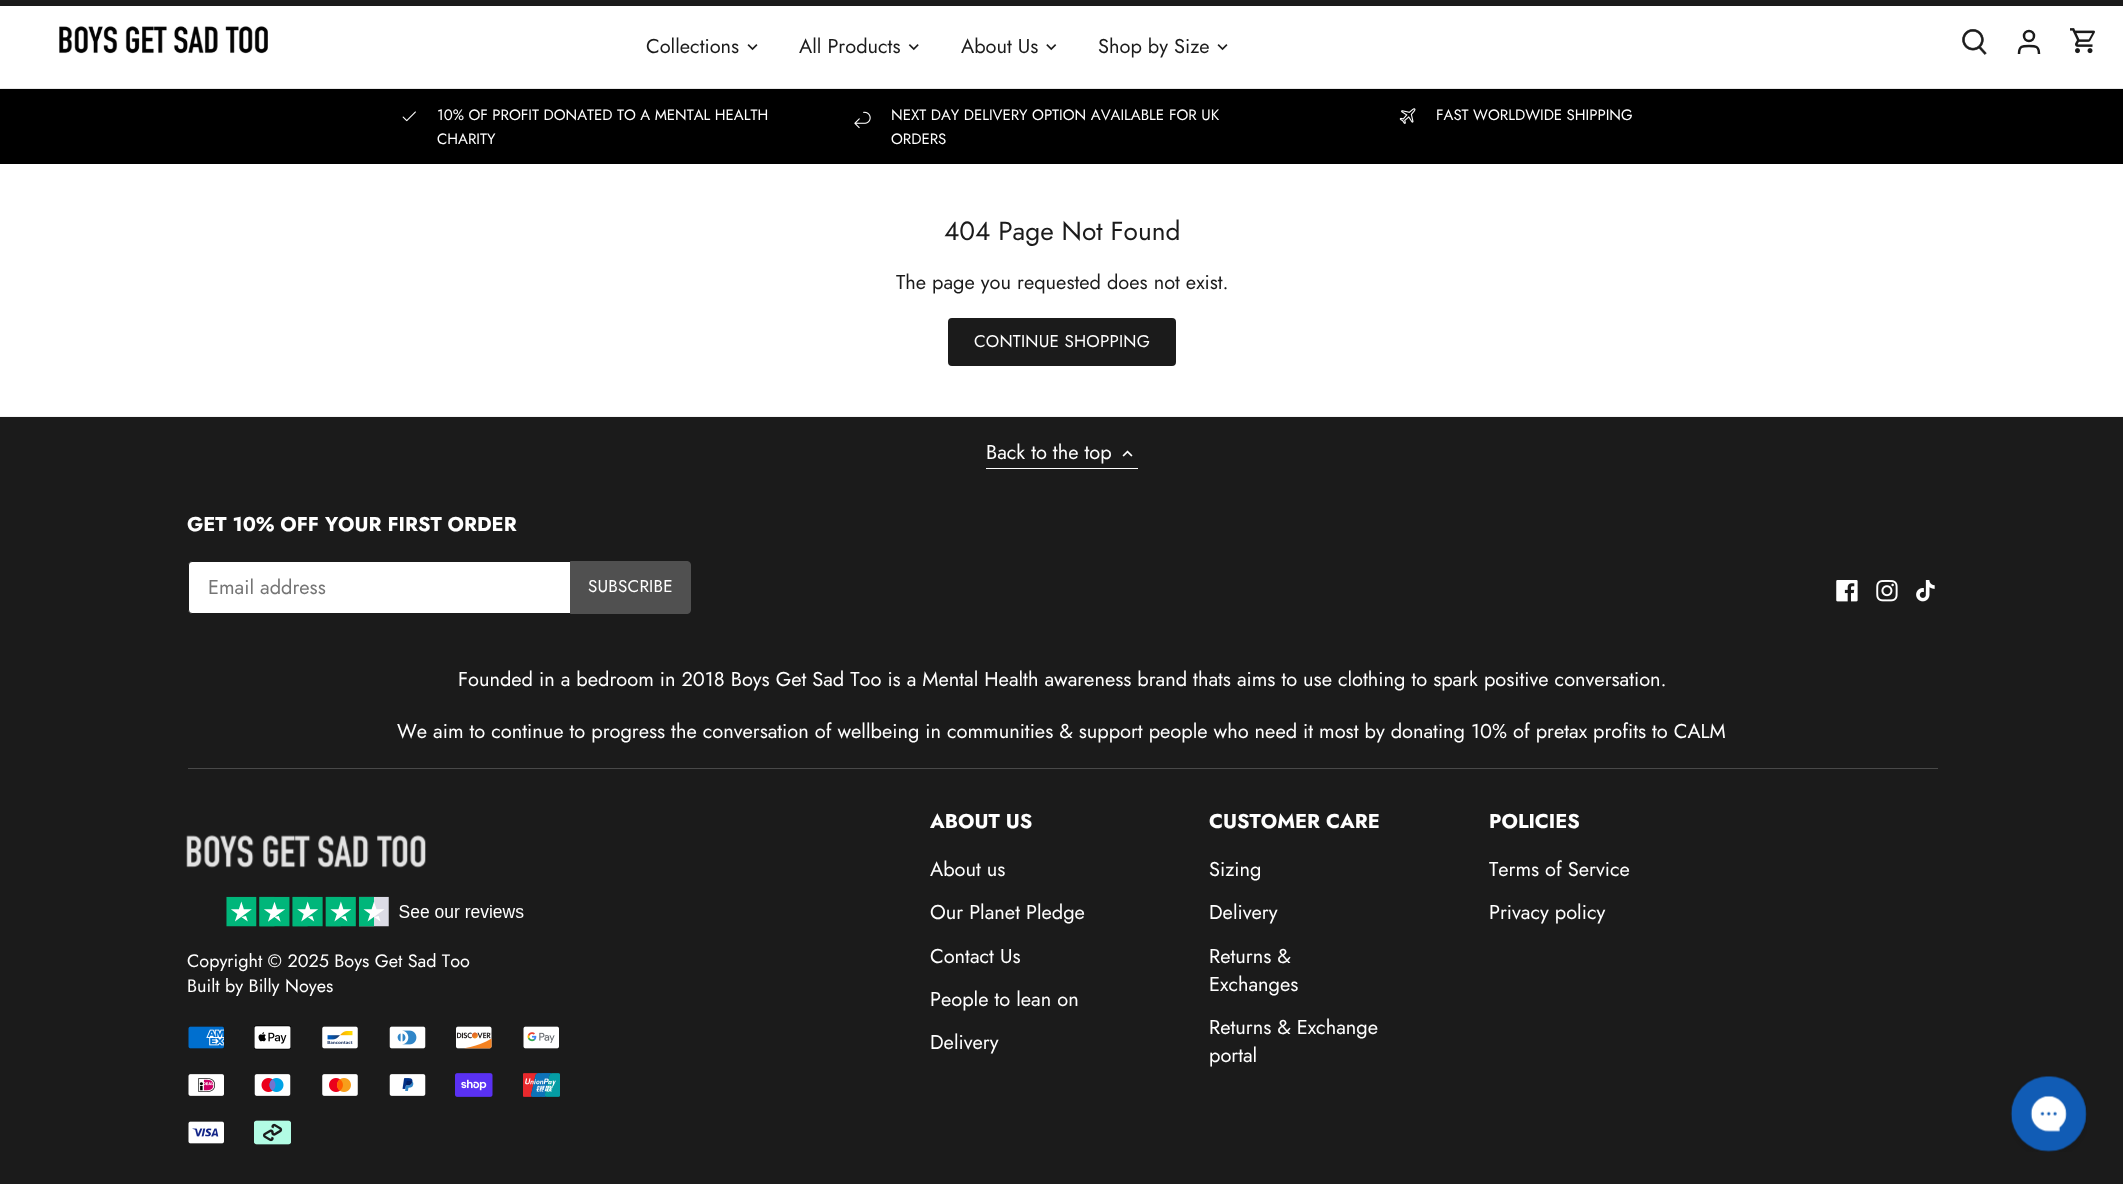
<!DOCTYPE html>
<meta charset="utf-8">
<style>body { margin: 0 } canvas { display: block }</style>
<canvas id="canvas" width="2123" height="1184"></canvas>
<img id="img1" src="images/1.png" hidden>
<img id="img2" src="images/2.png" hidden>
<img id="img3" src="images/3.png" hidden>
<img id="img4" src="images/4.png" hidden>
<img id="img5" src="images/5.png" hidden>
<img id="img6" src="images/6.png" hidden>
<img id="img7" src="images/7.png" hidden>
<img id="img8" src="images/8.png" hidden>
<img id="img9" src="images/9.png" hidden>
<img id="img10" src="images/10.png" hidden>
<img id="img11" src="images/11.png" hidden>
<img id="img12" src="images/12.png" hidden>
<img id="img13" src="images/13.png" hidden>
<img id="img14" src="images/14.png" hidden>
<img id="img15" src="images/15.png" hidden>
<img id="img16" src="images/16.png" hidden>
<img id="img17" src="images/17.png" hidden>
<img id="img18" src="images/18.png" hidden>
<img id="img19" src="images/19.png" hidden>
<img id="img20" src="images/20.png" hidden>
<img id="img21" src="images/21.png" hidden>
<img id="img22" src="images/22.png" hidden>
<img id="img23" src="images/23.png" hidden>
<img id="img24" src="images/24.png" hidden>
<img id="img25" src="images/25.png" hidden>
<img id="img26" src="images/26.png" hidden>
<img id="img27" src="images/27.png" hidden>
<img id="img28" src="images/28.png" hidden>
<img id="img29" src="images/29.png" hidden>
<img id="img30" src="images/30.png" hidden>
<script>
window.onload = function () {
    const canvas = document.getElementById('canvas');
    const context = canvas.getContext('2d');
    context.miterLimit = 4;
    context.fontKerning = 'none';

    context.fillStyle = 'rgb(27, 27, 27)';
    context.fillRect(0, 0, 2123, 1184);
    context.fillStyle = 'rgb(255, 255, 255)';
    context.fillRect(0, 164, 2123, 252);
    context.fillStyle = 'rgb(0, 0, 0)';
    context.fillRect(0, 89, 2123, 75);
    context.fillStyle = 'rgb(244, 244, 244)';
    context.fillRect(0, 88, 2123, 1);
    context.fillStyle = 'rgba(0, 0, 0, 0.08)';
    context.filter = 'blur(2px)';
    context.beginPath();
    context.rect(-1, 5, 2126, 84);
    context.fill();
    context.filter = 'none';
    context.fillStyle = 'rgb(255, 255, 255)';
    context.fillRect(0, 6, 2123, 82);
    context.drawImage(document.getElementById('img1'), 59, 26, 209, 28);
    context.drawImage(document.getElementById('img2'), 747, 44, 11, 7);
    context.drawImage(document.getElementById('img3'), 908, 44, 11, 7);
    context.drawImage(document.getElementById('img4'), 1046, 44, 11, 7);
    context.drawImage(document.getElementById('img2'), 1217, 44, 11, 7);
    context.drawImage(document.getElementById('img5'), 1962, 29, 25, 26);
    context.beginPath();
    context.arc(2029, 36, 5, 0, 2 * Math.PI);
    context.strokeStyle = 'rgb(27, 27, 27)';
    context.lineWidth = 2.5;
    context.stroke();
    context.beginPath();
    context.moveTo(2039, 54);
    context.bezierCurveTo(2039, 46, 2035.5, 46, 2029, 46);
    context.bezierCurveTo(2022, 46, 2019, 46, 2019, 54);
    context.stroke();
    context.drawImage(document.getElementById('img6'), 2070, 28, 25, 26);
    context.drawImage(document.getElementById('img7'), 402, 111, 14, 11);
    context.drawImage(document.getElementById('img8'), 854, 111, 17, 18);
    context.drawImage(document.getElementById('img9'), 1399, 108, 17, 16);
    context.fillStyle = 'rgb(27, 27, 27)';
    context.beginPath();
    context.roundRect(949.5, 319.5, 225, 45, 2.5);
    context.fill();
    context.lineWidth = 3;
    context.stroke();
    context.fillStyle = 'rgb(244, 244, 244)';
    context.fillRect(0, 416, 2123, 1);
    context.fillStyle = 'rgb(255, 255, 255)';
    context.fillRect(986, 468, 152, 1);
    context.drawImage(document.getElementById('img10'), 1122, 450, 11, 7);
    context.beginPath();
    context.roundRect(188.5, 561.5, 501, 52, 3.5);
    context.fill();
    context.lineWidth = 1;
    context.stroke();
    context.fillStyle = 'rgb(80, 80, 80)';
    context.beginPath();
    context.roundRect(570.5, 561.5, 120, 52, [0, 3.5, 3.5, 0]);
    context.fill();
    context.strokeStyle = 'rgb(80, 80, 80)';
    context.stroke();
    context.drawImage(document.getElementById('img11'), 1836, 580, 22, 22);
    context.drawImage(document.getElementById('img12'), 1876, 580, 22, 22);
    context.drawImage(document.getElementById('img13'), 1916, 580, 19, 22);
    context.fillStyle = 'rgb(73, 73, 73)';
    context.fillRect(188, 768, 1750, 1);
    context.drawImage(document.getElementById('img14'), 186, 835, 240, 33);
    context.drawImage(document.getElementById('img15'), 226, 896, 298, 31);
    context.drawImage(document.getElementById('img16'), 188, 1026, 37, 23);
    context.drawImage(document.getElementById('img17'), 254, 1025, 37, 25);
    context.drawImage(document.getElementById('img18'), 322, 1026, 36, 23);
    context.drawImage(document.getElementById('img19'), 389, 1026, 37, 23);
    context.drawImage(document.getElementById('img20'), 456, 1026, 36, 23);
    context.drawImage(document.getElementById('img21'), 523, 1026, 36, 23);
    context.drawImage(document.getElementById('img22'), 188, 1074, 36, 22);
    context.drawImage(document.getElementById('img23'), 254, 1074, 37, 22);
    context.drawImage(document.getElementById('img24'), 322, 1074, 36, 22);
    context.drawImage(document.getElementById('img25'), 389, 1074, 37, 22);
    context.drawImage(document.getElementById('img26'), 455, 1073, 38, 24);
    context.drawImage(document.getElementById('img27'), 523, 1073, 37, 24);
    context.drawImage(document.getElementById('img28'), 188, 1121, 36, 23);
    context.drawImage(document.getElementById('img29'), 254, 1120, 37, 25);
    context.drawImage(document.getElementById('img30'), 2010, 1076, 77, 76);
    context.font = '20px Jost';
    context.fillStyle = 'rgb(27, 27, 27)';
    context.fillText('Collections', 646, 53);
    context.fillText('All Products', 799, 53);
    context.fillText('About Us', 961, 53);
    context.fillText('Shop by Size', 1098, 53);
    context.font = '15px Jost';
    context.fillStyle = 'rgb(255, 255, 255)';
    context.fillText('10% OF PROFIT DONATED TO A MENTAL HEALTH', 437, 120);
    context.fillText('CHARITY', 437, 144);
    context.fillText('NEXT DAY DELIVERY OPTION AVAILABLE', 891, 120);
    context.fillText('FOR UK', 1169, 120);
    context.fillText('ORDERS', 891, 144);
    context.fillText('FAST WORLDWIDE SHIPPING', 1436, 120);
    context.font = '26.25px Jost';
    context.fillStyle = 'rgb(27, 27, 27)';
    context.fillText('404 Page Not Found', 944, 240);
    context.font = '20px Jost';
    context.fillText('The page you requested does not exist.', 896, 289);
    context.letterSpacing = '0.2px';
    context.font = '17px Jost';
    context.fillStyle = 'rgb(255, 255, 255)';
    context.fillText('CONTINUE SHOPPING', 974, 347);
    context.letterSpacing = '0px';
    context.font = '20px Jost';
    context.fillText('Back to the top', 986, 459);
    context.font = 'bold 20px Jost';
    context.fillText('GET 10% OFF YOUR FIRST ORDER', 187, 531);
    context.font = '20px Jost';
    context.fillStyle = 'rgb(117, 117, 117)';
    context.fillText('Email address', 208, 594);
    context.letterSpacing = '0.2px';
    context.font = '17px Jost';
    context.fillStyle = 'rgb(255, 255, 255)';
    context.fillText('SUBSCRIBE', 588, 592);
    context.letterSpacing = '0px';
    context.font = '20px Jost';
    context.fillText('Founded in a bedroom in 2018 Boys Get Sad Too is a Mental Health awareness brand thats aims to use clothing to spark positive conversation.', 458, 686);
    context.fillText('We aim to continue to progress the conversation of wellbeing in communities & support people who need it most by donating 10% of pretax profits', 397, 738);
    context.fillText('to CALM', 1652, 738);
    context.font = '18px Jost';
    context.fillText('Copyright © 2025 Boys Get Sad Too', 187, 967);
    context.fillText('Built by Billy Noyes', 187, 992);
    context.font = 'bold 20px Jost';
    context.fillText('ABOUT US', 930, 828);
    context.font = '20px Jost';
    context.fillText('About us', 930, 876);
    context.fillText('Our Planet Pledge', 930, 919);
    context.fillText('Contact Us', 930, 963);
    context.fillText('People to lean on', 930, 1006);
    context.fillText('Delivery', 930, 1049);
    context.font = 'bold 20px Jost';
    context.fillText('CUSTOMER CARE', 1209, 828);
    context.font = '20px Jost';
    context.fillText('Sizing', 1209, 876);
    context.fillText('Delivery', 1209, 919);
    context.fillText('Returns &', 1209, 963);
    context.fillText('Exchanges', 1209, 991);
    context.fillText('Returns & Exchange', 1209, 1034);
    context.fillText('portal', 1209, 1062);
    context.font = 'bold 20px Jost';
    context.fillText('POLICIES', 1489, 828);
    context.font = '20px Jost';
    context.fillText('Terms of Service', 1489, 876);
    context.fillText('Privacy policy', 1489, 919);
};
</script>
